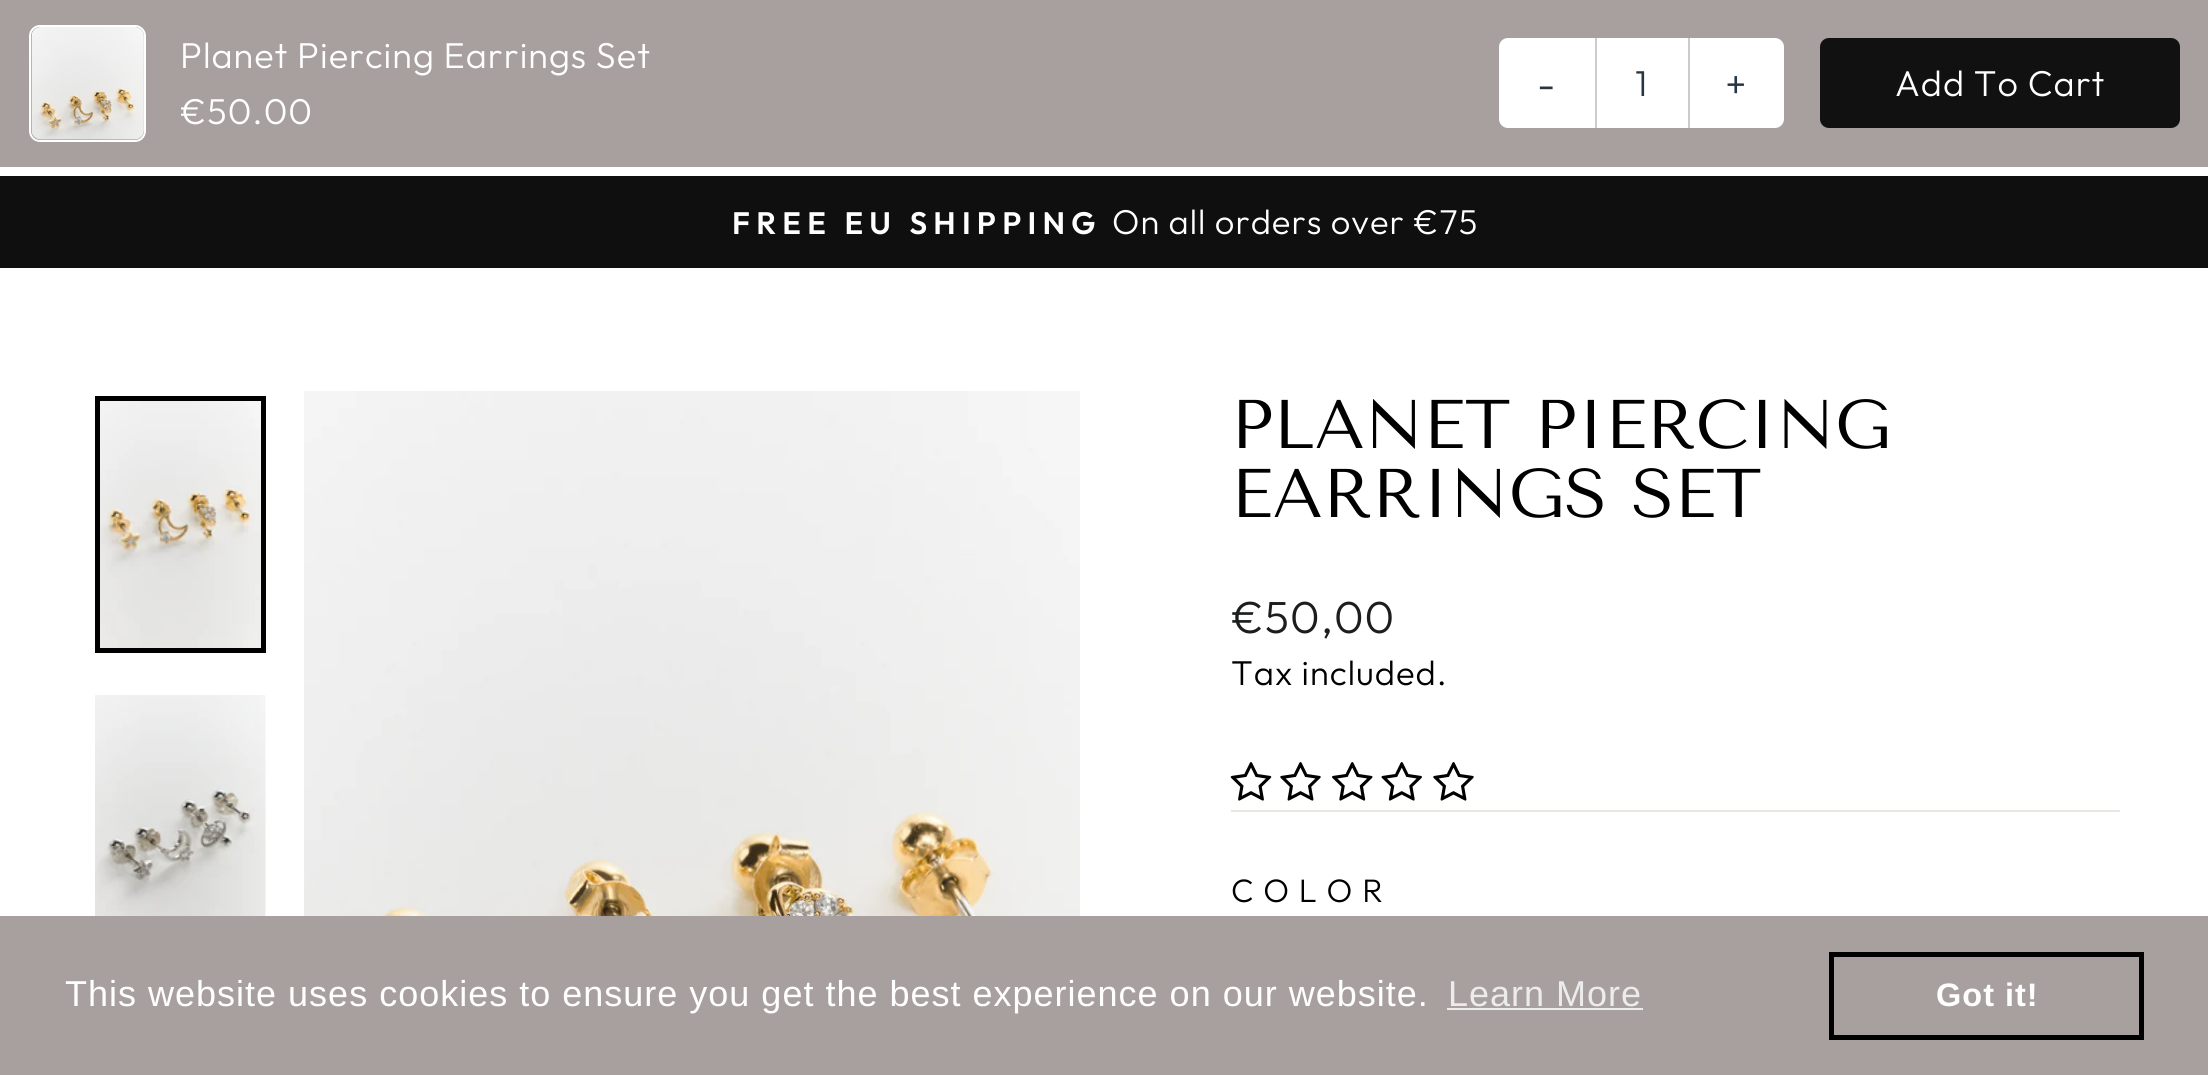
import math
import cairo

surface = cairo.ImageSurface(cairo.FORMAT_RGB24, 2208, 1075)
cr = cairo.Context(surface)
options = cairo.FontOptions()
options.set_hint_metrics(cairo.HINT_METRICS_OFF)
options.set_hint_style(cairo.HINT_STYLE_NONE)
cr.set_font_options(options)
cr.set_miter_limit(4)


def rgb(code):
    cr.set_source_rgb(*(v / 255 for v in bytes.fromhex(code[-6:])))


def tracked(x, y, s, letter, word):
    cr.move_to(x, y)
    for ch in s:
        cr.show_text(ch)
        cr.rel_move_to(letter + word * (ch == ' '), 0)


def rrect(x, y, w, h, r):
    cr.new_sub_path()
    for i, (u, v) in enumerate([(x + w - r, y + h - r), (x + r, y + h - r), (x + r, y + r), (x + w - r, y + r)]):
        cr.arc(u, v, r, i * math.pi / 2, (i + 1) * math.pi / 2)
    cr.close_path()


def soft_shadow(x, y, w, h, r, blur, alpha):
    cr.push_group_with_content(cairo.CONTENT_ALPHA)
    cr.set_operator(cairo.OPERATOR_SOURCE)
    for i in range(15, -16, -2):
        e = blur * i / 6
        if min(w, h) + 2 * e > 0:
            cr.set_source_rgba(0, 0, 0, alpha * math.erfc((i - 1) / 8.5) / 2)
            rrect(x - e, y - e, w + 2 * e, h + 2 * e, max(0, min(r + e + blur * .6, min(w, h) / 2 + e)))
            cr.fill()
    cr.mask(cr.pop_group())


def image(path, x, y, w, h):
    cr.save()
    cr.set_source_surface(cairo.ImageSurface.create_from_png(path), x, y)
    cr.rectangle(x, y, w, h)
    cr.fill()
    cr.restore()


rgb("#ffffff")
cr.paint()
rgb("#0f0f0f")
cr.rectangle(0, 176, 2208, 92)
cr.fill()
rgb("#000000")
soft_shadow(0, -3, 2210, 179, 0, 1, 0.2)
rgb("#a7a09e")
cr.rectangle(0, 0, 2208, 167)
cr.fill()
image("img/1.png", 31, 27, 113, 113)
rrect(30, 26, 115, 115, 10)
rgb("#ffffff")
cr.stroke()
rrect(1499, 38, 285, 90, 9)
cr.fill()
rgb("#cccccc")
cr.rectangle(1595, 38, 2, 90)
cr.fill()
cr.rectangle(1688, 38, 2, 90)
cr.fill()
rgb("#111111")
rrect(1820, 38, 360, 90, 9)
cr.fill()
rgb("#ffffff")
cr.rectangle(0, 167, 2208, 9)
cr.fill()
image("img/2.png", 100, 401, 161, 247)
cr.rectangle(97.5, 398.5, 166, 252)
rgb("#000000")
cr.set_line_width(5)
cr.stroke()
image("img/3.png", 95, 695, 171, 221)
image("img/4.png", 304, 391, 776, 525)
image("img/5.png", 1230, 762, 42, 39)
image("img/6.png", 1280, 762, 41, 39)
image("img/7.png", 1332, 762, 41, 39)
image("img/8.png", 1381, 762, 41, 39)
image("img/6.png", 1433, 762, 41, 39)
for x, y, w, h, color in [
    (1231, 810, 889, 2, "#e8e8e1"),
    (0, 916, 2208, 159, "#a7a09e"),
    (1447, 1008, 196, 2, "#edecec"),
]:
    rgb(color)
    cr.rectangle(x, y, w, h)
    cr.fill()
cr.rectangle(1831.5, 954.5, 310, 83)
rgb("#000000")
cr.stroke()
cr.select_font_face("Outfit Light")
cr.set_font_size(36)
rgb("#ffffff")
tracked(180, 68, "Planet Piercing Earrings Set", 1, 0)
tracked(180, 124, "€50.00", 1, 0)
cr.set_font_size(40)
rgb("#2d353c")
tracked(1537, 98, "-", 1, 0)
cr.set_font_size(36)
rgb("#263644")
tracked(1635, 96, "1", 1, 0)
cr.set_font_size(40)
tracked(1725, 98, "+", 1, 0)
cr.set_font_size(36)
rgb("#ffffff")
tracked(1895, 96, "Add To Cart", 1, 0)
cr.select_font_face("Outfit SemiBold")
cr.set_font_size(31)
tracked(732, 234, "FREE EU SHIPPING", 6.25, 0)
cr.select_font_face("Outfit Light")
cr.set_font_size(34.5)
tracked(1112, 234, "On all orders over €75", 1, 0)
cr.select_font_face("Tenor Sans")
cr.set_font_size(68.75)
rgb("#000000")
cr.move_to(1231, 448)
cr.show_text("PLANET PIERCING")
cr.move_to(1231, 517)
cr.show_text("EARRINGS SET")
cr.select_font_face("Outfit Light")
cr.set_font_size(45)
rgb("#1c1d1d")
tracked(1231, 633, "€50,00", 1, 0)
cr.set_font_size(34.5)
rgb("#000000")
tracked(1231, 685, "Tax included.", 1, 0)
cr.set_font_size(32.5)
tracked(1231, 902, "COLOR", 9.75, 0)
cr.select_font_face("Liberation Sans")
cr.set_font_size(36)
rgb("#ffffff")
tracked(65, 1006, "This website uses cookies to ensure you get the best experience on our website.", 1, 0)
rgb("#edecec")
tracked(1448, 1006, "Learn More", 1, 0)
cr.select_font_face("Liberation Sans", cairo.FONT_SLANT_NORMAL, cairo.FONT_WEIGHT_BOLD)
cr.set_font_size(32.5)
rgb("#ffffff")
tracked(1936, 1006, "Got it!", 1, 0)
surface.write_to_png("page.png")
